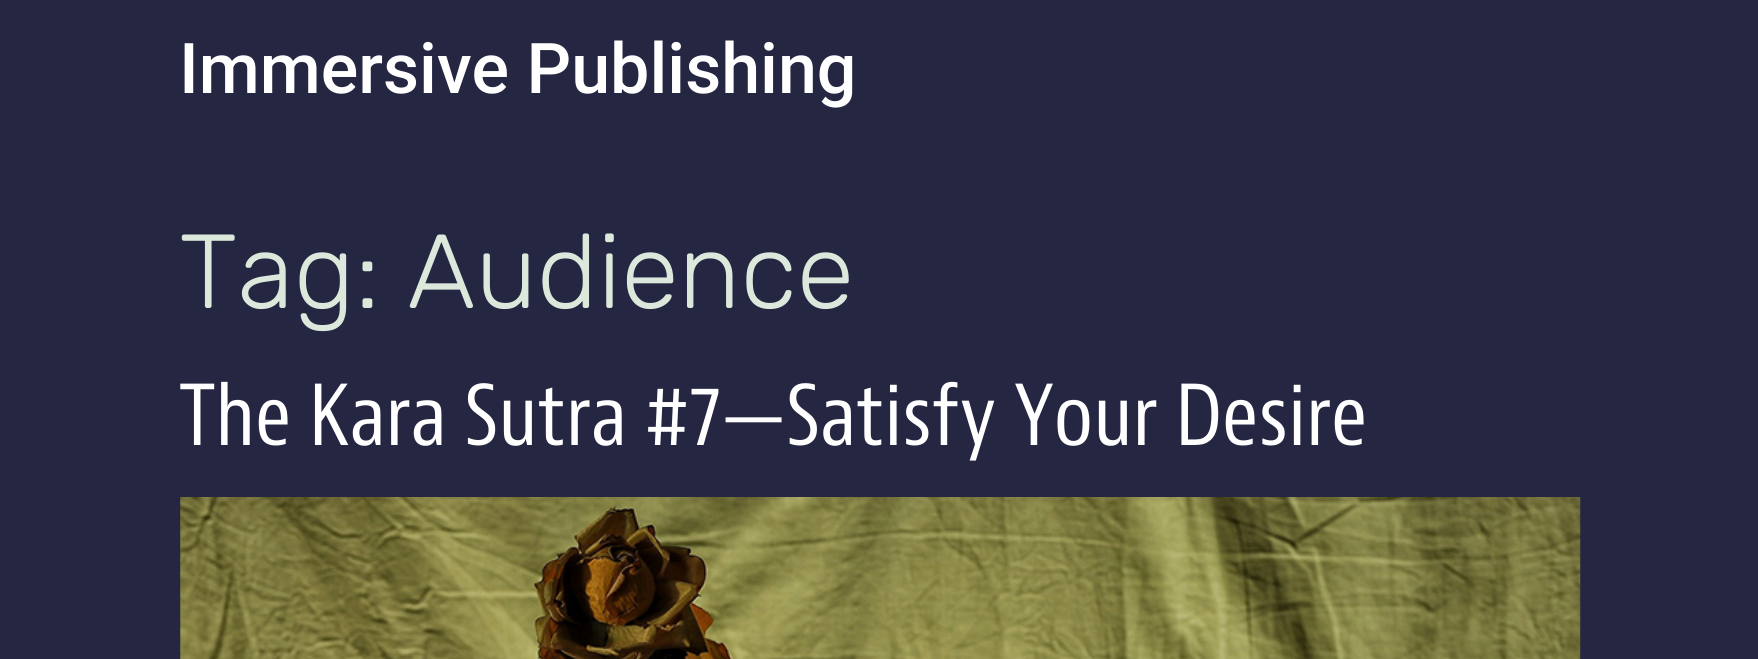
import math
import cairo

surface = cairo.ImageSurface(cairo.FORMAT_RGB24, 1758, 659)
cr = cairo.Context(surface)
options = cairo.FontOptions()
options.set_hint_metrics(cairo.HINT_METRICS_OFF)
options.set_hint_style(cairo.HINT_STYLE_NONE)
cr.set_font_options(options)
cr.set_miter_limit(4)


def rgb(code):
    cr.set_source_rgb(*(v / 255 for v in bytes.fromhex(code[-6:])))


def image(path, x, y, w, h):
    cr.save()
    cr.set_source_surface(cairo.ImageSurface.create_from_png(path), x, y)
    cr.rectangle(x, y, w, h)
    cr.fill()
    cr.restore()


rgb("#252742")
cr.paint()
image("img/1.png", 180, 497, 1401, 162)
cr.select_font_face("Roboto Medium")
cr.set_font_size(70)
rgb("#ffffff")
cr.move_to(179, 93)
cr.show_text("Immersive Publishing")
cr.select_font_face("Rubik Light")
cr.set_font_size(105)
rgb("#dce8dc")
cr.move_to(179, 308)
cr.show_text("Tag: Audience")
cr.select_font_face("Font")
cr.set_font_size(87.5)
rgb("#ffffff")
cr.move_to(179, 445)
cr.show_text("The Kara Sutra #7—Satisfy Your Desire")
surface.write_to_png("page.png")
